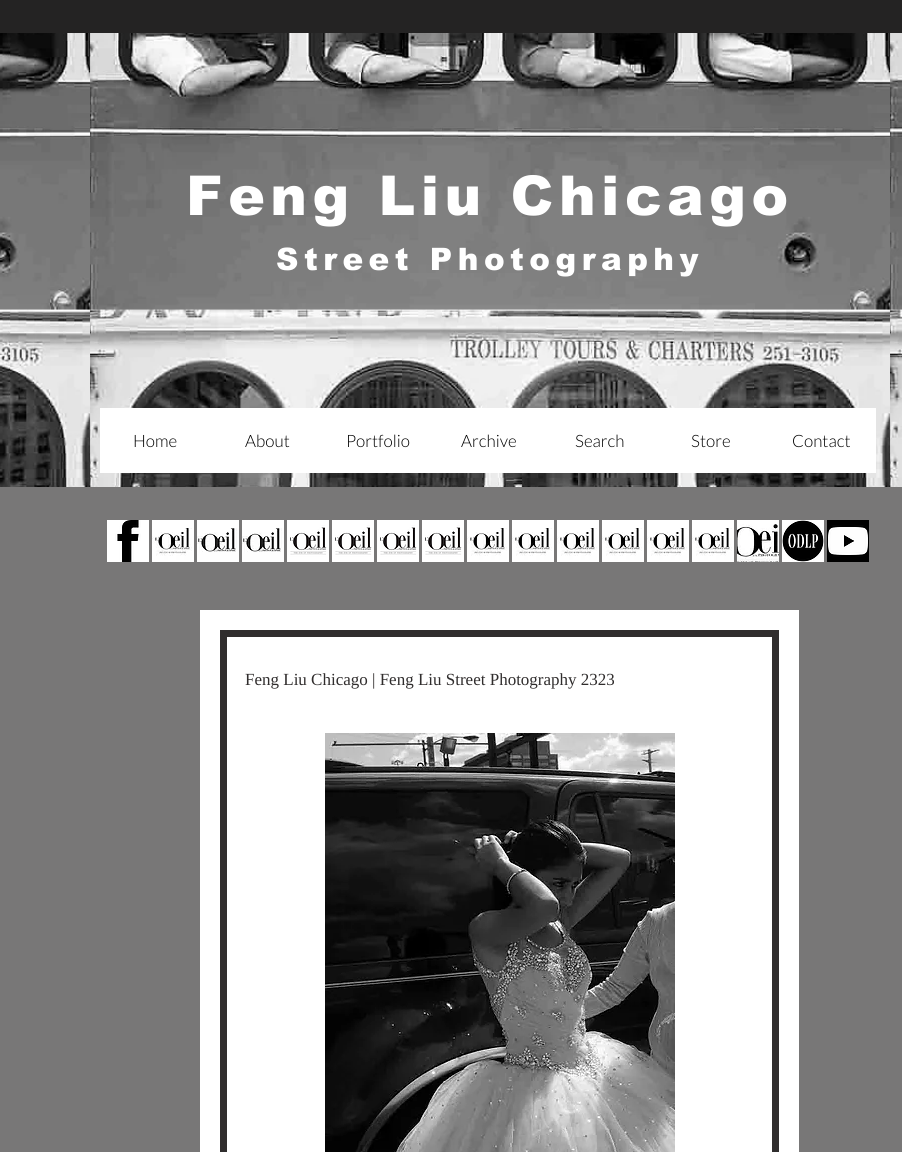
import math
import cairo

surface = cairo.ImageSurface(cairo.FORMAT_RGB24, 902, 1152)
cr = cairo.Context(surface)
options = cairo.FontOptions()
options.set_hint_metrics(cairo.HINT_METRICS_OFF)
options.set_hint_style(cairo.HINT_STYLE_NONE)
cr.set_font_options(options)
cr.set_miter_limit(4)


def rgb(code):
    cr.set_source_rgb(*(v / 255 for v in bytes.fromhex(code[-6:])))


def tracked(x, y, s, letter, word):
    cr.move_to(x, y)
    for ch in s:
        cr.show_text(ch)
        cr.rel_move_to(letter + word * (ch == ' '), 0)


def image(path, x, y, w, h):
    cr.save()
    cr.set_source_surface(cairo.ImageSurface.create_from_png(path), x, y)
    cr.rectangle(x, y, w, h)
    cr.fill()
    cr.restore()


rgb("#787777")
cr.paint()
rgb("#242323")
cr.rectangle(0, 0, 902, 33)
cr.fill()
image("img/1.png", 0, 33, 902, 454)
rgb("#ffffff")
cr.rectangle(100, 408, 776, 65)
cr.fill()
image("img/2.png", 107, 520, 42, 42)
image("img/3.png", 152, 520, 42, 42)
image("img/4.png", 197, 520, 42, 42)
image("img/4.png", 242, 520, 42, 42)
image("img/5.png", 287, 520, 42, 42)
image("img/5.png", 332, 520, 42, 42)
image("img/5.png", 377, 520, 42, 42)
image("img/5.png", 422, 520, 42, 42)
image("img/3.png", 467, 520, 42, 42)
image("img/3.png", 512, 520, 42, 42)
image("img/3.png", 557, 520, 42, 42)
image("img/3.png", 602, 520, 42, 42)
image("img/3.png", 647, 520, 42, 42)
image("img/3.png", 692, 520, 42, 42)
image("img/6.png", 737, 520, 42, 42)
image("img/7.png", 782, 520, 42, 42)
image("img/8.png", 827, 520, 42, 42)
cr.rectangle(200, 610, 599, 542)
cr.fill()
cr.rectangle(223.5, 633.5, 552, 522)
rgb("#302d2d")
cr.set_line_width(7)
cr.stroke()
image("img/9.png", 325, 733, 350, 419)
cr.select_font_face("arial Black")
cr.set_font_size(55)
rgb("#ffffff")
tracked(186, 215, "Feng Liu Chicago", 5.5, 0)
cr.set_font_size(31)
tracked(276, 270, "Street Photography", 5.5, 0)
cr.select_font_face("Lato Light")
cr.set_font_size(17)
rgb("#000000")
for x, y, s in [
    (133, 447, "Home"),
    (245, 447, "About"),
    (346, 447, "Portfolio"),
    (461, 447, "Archive"),
    (575, 447, "Search"),
    (691, 447, "Store"),
    (792, 447, "Contact"),
]:
    cr.move_to(x, y)
    cr.show_text(s)
cr.select_font_face("Liberation Serif")
rgb("#302d2d")
cr.move_to(245, 685)
cr.show_text("Feng Liu Chicago | Feng Liu Street Photography 2323")
surface.write_to_png("page.png")
